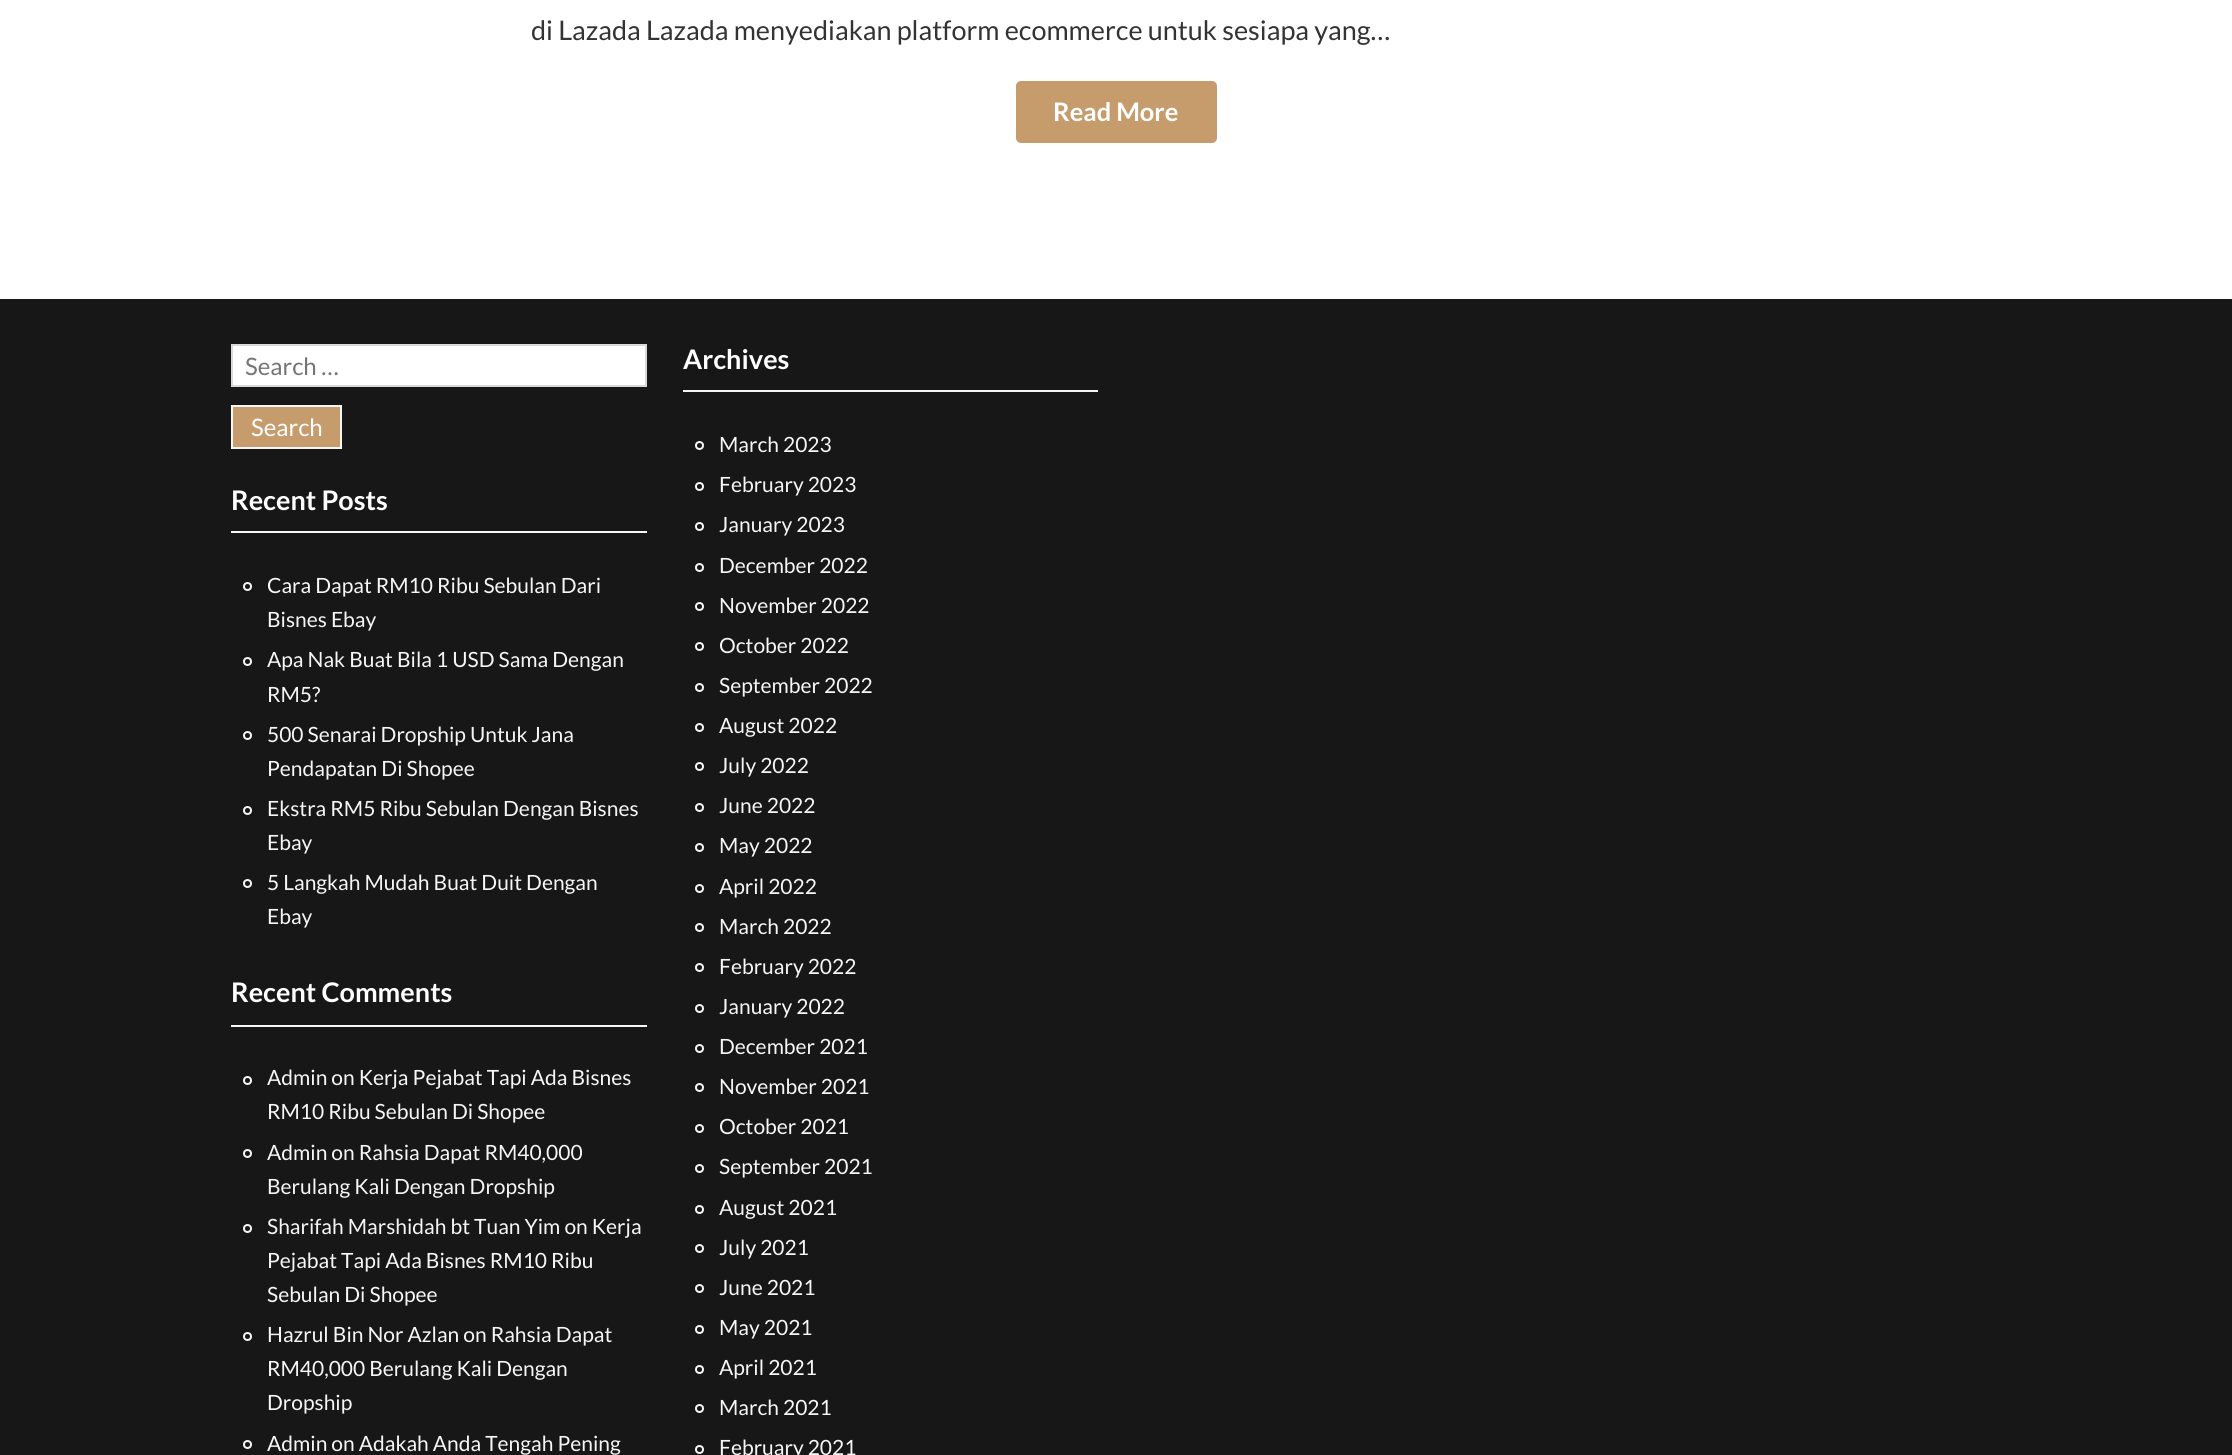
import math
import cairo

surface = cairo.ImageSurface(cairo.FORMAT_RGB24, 2232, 1455)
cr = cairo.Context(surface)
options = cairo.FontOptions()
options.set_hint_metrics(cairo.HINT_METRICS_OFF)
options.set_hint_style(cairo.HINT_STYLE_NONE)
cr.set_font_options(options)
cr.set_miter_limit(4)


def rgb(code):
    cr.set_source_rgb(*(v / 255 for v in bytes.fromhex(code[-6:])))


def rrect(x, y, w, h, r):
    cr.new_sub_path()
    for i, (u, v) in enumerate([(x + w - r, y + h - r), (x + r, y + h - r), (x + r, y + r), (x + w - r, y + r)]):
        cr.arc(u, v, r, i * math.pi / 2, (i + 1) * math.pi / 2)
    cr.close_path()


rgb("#ffffff")
cr.paint()
rgb("#c69c6d")
rrect(1016, 81, 201, 62, 5)
cr.fill()
rgb("#171717")
cr.rectangle(0, 299, 2232, 1156)
cr.fill()
rgb("#ffffff")
cr.rectangle(232, 345, 414, 41)
cr.fill_preserve()
rgb("#d9d9d9")
cr.stroke()
rgb("#c69c6d")
cr.rectangle(232, 406, 109, 42)
cr.fill_preserve()
rgb("#f6f6f6")
cr.stroke()
cr.rectangle(231, 531, 416, 2)
cr.fill()
cr.arc(247.5, 586.5, 3.5, 0, 2 * math.pi)
cr.stroke()
cr.arc(247.5, 661.5, 3.5, 0, 2 * math.pi)
cr.stroke()
cr.arc(247.5, 735.5, 3.5, 0, 2 * math.pi)
cr.stroke()
cr.arc(247.5, 810.5, 3.5, 0, 2 * math.pi)
cr.stroke()
cr.arc(247.5, 883.5, 3.5, 0, 2 * math.pi)
cr.stroke()
cr.rectangle(231, 1025, 416, 2)
cr.fill()
cr.arc(247.5, 1080.5, 3.5, 0, 2 * math.pi)
cr.stroke()
cr.arc(247.5, 1153.5, 3.5, 0, 2 * math.pi)
cr.stroke()
cr.arc(247.5, 1228.5, 3.5, 0, 2 * math.pi)
cr.stroke()
cr.arc(247.5, 1336.5, 3.5, 0, 2 * math.pi)
cr.stroke()
cr.arc(247.5, 1444.5, 3.5, 0, 2 * math.pi)
cr.stroke()
cr.rectangle(683, 390, 415, 2)
cr.fill()
cr.arc(699.5, 445.5, 3.5, 0, 2 * math.pi)
cr.stroke()
cr.arc(699.5, 486.5, 3.5, 0, 2 * math.pi)
cr.stroke()
cr.arc(699.5, 526.5, 3.5, 0, 2 * math.pi)
cr.stroke()
cr.arc(699.5, 567.5, 3.5, 0, 2 * math.pi)
cr.stroke()
cr.arc(699.5, 606.5, 3.5, 0, 2 * math.pi)
cr.stroke()
cr.arc(699.5, 646.5, 3.5, 0, 2 * math.pi)
cr.stroke()
cr.arc(699.5, 687.5, 3.5, 0, 2 * math.pi)
cr.stroke()
cr.arc(699.5, 727.5, 3.5, 0, 2 * math.pi)
cr.stroke()
cr.arc(699.5, 766.5, 3.5, 0, 2 * math.pi)
cr.stroke()
cr.arc(699.5, 807.5, 3.5, 0, 2 * math.pi)
cr.stroke()
cr.arc(699.5, 847.5, 3.5, 0, 2 * math.pi)
cr.stroke()
cr.arc(699.5, 888.5, 3.5, 0, 2 * math.pi)
cr.stroke()
cr.arc(699.5, 927.5, 3.5, 0, 2 * math.pi)
cr.stroke()
cr.arc(699.5, 967.5, 3.5, 0, 2 * math.pi)
cr.stroke()
cr.arc(699.5, 1008.5, 3.5, 0, 2 * math.pi)
cr.stroke()
cr.arc(699.5, 1048.5, 3.5, 0, 2 * math.pi)
cr.stroke()
cr.arc(699.5, 1087.5, 3.5, 0, 2 * math.pi)
cr.stroke()
cr.arc(699.5, 1128.5, 3.5, 0, 2 * math.pi)
cr.stroke()
cr.arc(699.5, 1168.5, 3.5, 0, 2 * math.pi)
cr.stroke()
cr.arc(699.5, 1209.5, 3.5, 0, 2 * math.pi)
cr.stroke()
cr.arc(699.5, 1248.5, 3.5, 0, 2 * math.pi)
cr.stroke()
cr.arc(699.5, 1288.5, 3.5, 0, 2 * math.pi)
cr.stroke()
cr.arc(699.5, 1329.5, 3.5, 0, 2 * math.pi)
cr.stroke()
cr.arc(699.5, 1369.5, 3.5, 0, 2 * math.pi)
cr.stroke()
cr.arc(699.5, 1408.5, 3.5, 0, 2 * math.pi)
cr.stroke()
cr.arc(699.5, 1449.5, 3.5, 0, 2 * math.pi)
cr.stroke()
cr.select_font_face("Lato")
cr.set_font_size(27)
rgb("#333333")
cr.move_to(531, 40)
cr.show_text("di Lazada Lazada menyediakan platform ecommerce untuk sesiapa yang…")
cr.select_font_face("Lato", cairo.FONT_SLANT_NORMAL, cairo.FONT_WEIGHT_BOLD)
cr.set_font_size(25.5)
rgb("#ffffff")
cr.move_to(1053, 121)
cr.show_text("Read More")
cr.select_font_face("Lato")
cr.set_font_size(24)
rgb("#757575")
cr.move_to(245, 375)
cr.show_text("Search …")
rgb("#ffffff")
cr.move_to(251, 436)
cr.show_text("Search")
cr.select_font_face("Lato", cairo.FONT_SLANT_NORMAL, cairo.FONT_WEIGHT_BOLD)
cr.set_font_size(27)
cr.move_to(231, 510)
cr.show_text("Recent Posts")
cr.select_font_face("Lato")
cr.set_font_size(21)
rgb("#f6f6f6")
for x, y, s in [
    (267, 593, "Cara Dapat RM10 Ribu Sebulan Dari"),
    (267, 627, "Bisnes Ebay"),
    (267, 667, "Apa Nak Buat Bila 1 USD Sama Dengan"),
    (267, 702, "RM5?"),
    (267, 742, "500 Senarai Dropship Untuk Jana"),
    (267, 776, "Pendapatan Di Shopee"),
    (267, 816, "Ekstra RM5 Ribu Sebulan Dengan Bisnes"),
    (267, 850, "Ebay"),
    (267, 890, "5 Langkah Mudah Buat Duit Dengan"),
    (267, 924, "Ebay"),
]:
    cr.move_to(x, y)
    cr.show_text(s)
cr.select_font_face("Lato", cairo.FONT_SLANT_NORMAL, cairo.FONT_WEIGHT_BOLD)
cr.set_font_size(27)
rgb("#ffffff")
cr.move_to(231, 1002)
cr.show_text("Recent Comments")
cr.select_font_face("Lato")
cr.set_font_size(21)
rgb("#f6f6f6")
for x, y, s in [
    (267, 1085, "Admin on Kerja Pejabat Tapi Ada Bisnes"),
    (267, 1119, "RM10 Ribu Sebulan Di Shopee"),
    (267, 1160, "Admin on Rahsia Dapat RM40,000"),
    (267, 1194, "Berulang Kali Dengan Dropship"),
    (267, 1234, "Sharifah Marshidah bt Tuan Yim on Kerja"),
    (267, 1268, "Pejabat Tapi Ada Bisnes RM10 Ribu"),
    (267, 1302, "Sebulan Di Shopee"),
    (267, 1342, "Hazrul Bin Nor Azlan on Rahsia Dapat"),
    (267, 1376, "RM40,000 Berulang Kali Dengan"),
    (267, 1410, "Dropship"),
    (267, 1451, "Admin on Adakah Anda Tengah Pening"),
]:
    cr.move_to(x, y)
    cr.show_text(s)
cr.select_font_face("Lato", cairo.FONT_SLANT_NORMAL, cairo.FONT_WEIGHT_BOLD)
cr.set_font_size(27)
rgb("#ffffff")
cr.move_to(683, 369)
cr.show_text("Archives")
cr.select_font_face("Lato")
cr.set_font_size(21)
rgb("#f6f6f6")
for x, y, s in [
    (719, 452, "March 2023"),
    (719, 492, "February 2023"),
    (719, 532, "January 2023"),
    (719, 573, "December 2022"),
    (719, 613, "November 2022"),
    (719, 653, "October 2022"),
    (719, 693, "September 2022"),
    (719, 733, "August 2022"),
    (719, 773, "July 2022"),
    (719, 813, "June 2022"),
    (719, 853, "May 2022"),
    (719, 894, "April 2022"),
    (719, 934, "March 2022"),
    (719, 974, "February 2022"),
    (719, 1014, "January 2022"),
    (719, 1054, "December 2021"),
    (719, 1094, "November 2021"),
    (719, 1134, "October 2021"),
    (719, 1174, "September 2021"),
    (719, 1215, "August 2021"),
    (719, 1255, "July 2021"),
    (719, 1295, "June 2021"),
    (719, 1335, "May 2021"),
    (719, 1375, "April 2021"),
    (719, 1415, "March 2021"),
    (719, 1455, "February 2021"),
]:
    cr.move_to(x, y)
    cr.show_text(s)
surface.write_to_png("page.png")
